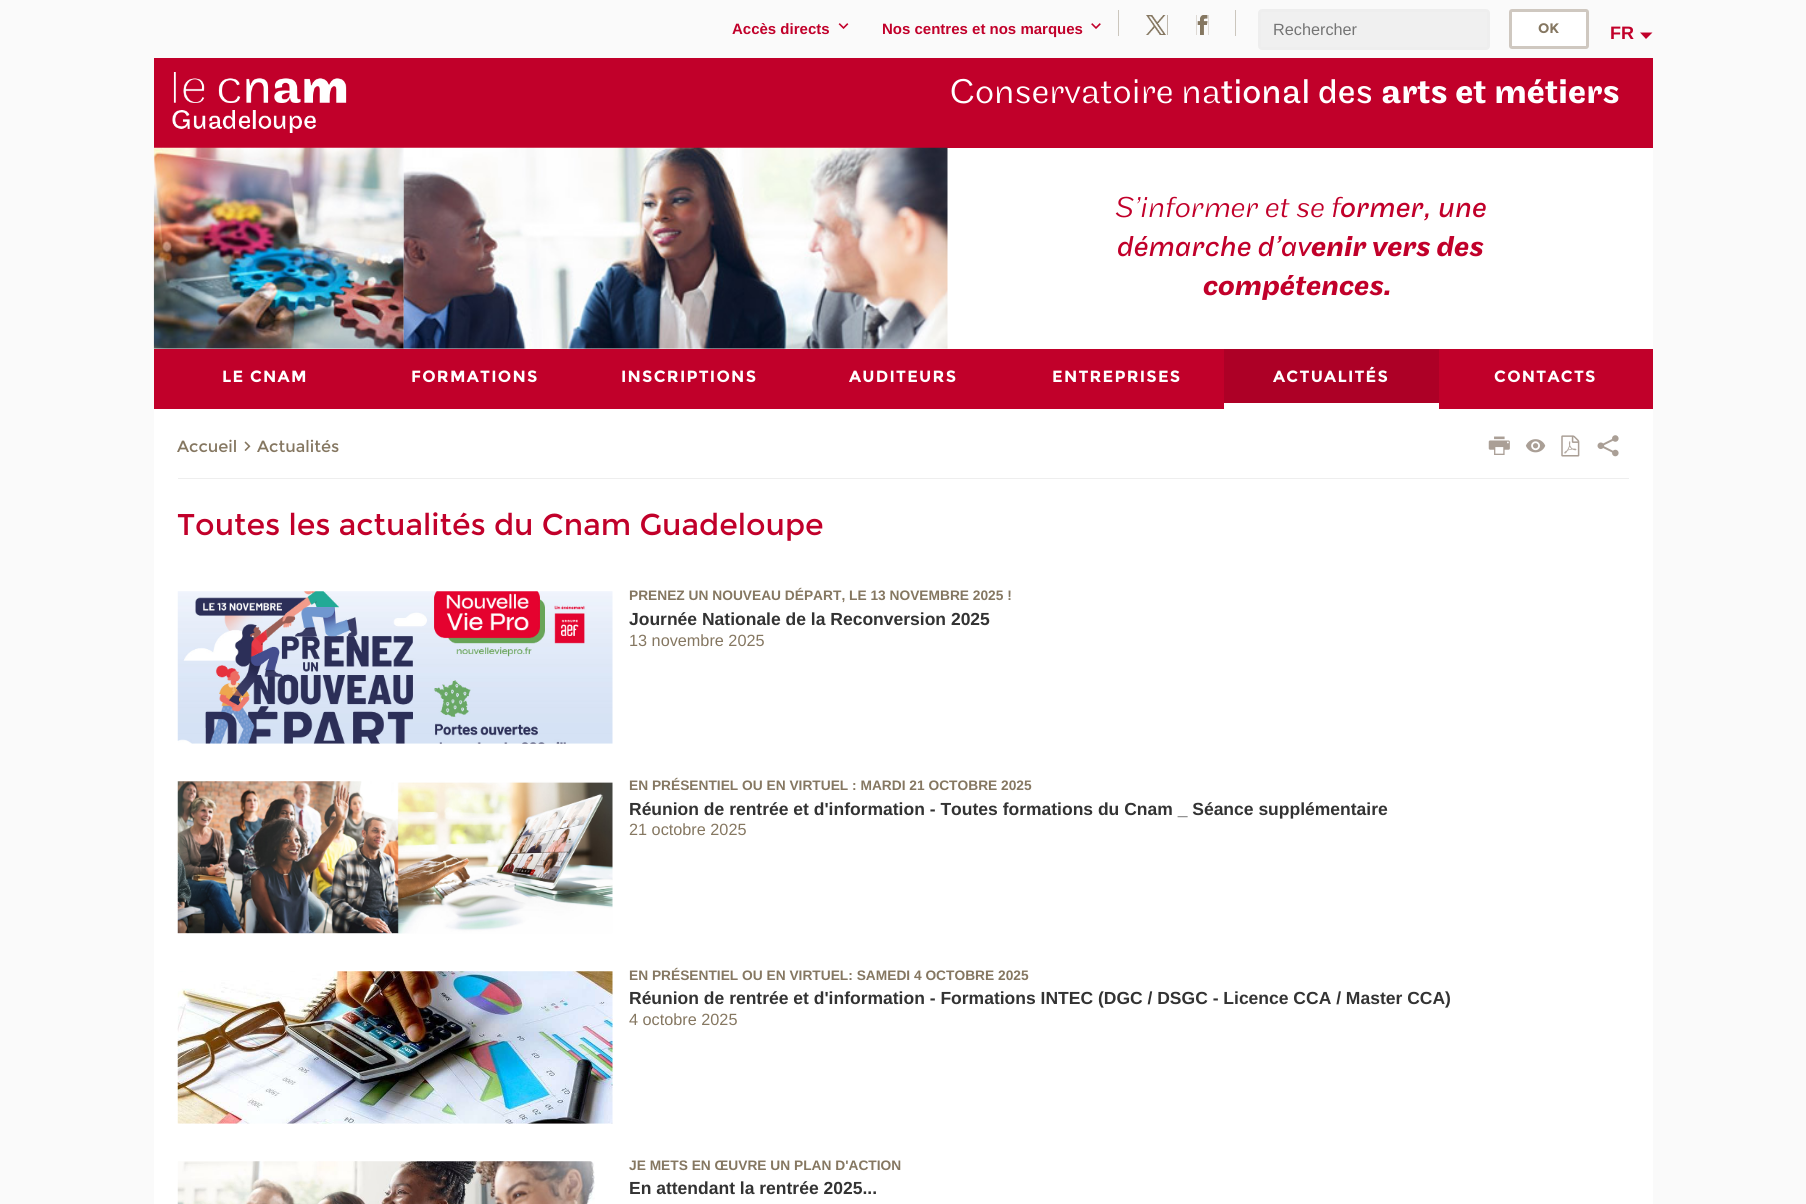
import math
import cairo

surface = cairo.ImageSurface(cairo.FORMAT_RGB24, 1806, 1204)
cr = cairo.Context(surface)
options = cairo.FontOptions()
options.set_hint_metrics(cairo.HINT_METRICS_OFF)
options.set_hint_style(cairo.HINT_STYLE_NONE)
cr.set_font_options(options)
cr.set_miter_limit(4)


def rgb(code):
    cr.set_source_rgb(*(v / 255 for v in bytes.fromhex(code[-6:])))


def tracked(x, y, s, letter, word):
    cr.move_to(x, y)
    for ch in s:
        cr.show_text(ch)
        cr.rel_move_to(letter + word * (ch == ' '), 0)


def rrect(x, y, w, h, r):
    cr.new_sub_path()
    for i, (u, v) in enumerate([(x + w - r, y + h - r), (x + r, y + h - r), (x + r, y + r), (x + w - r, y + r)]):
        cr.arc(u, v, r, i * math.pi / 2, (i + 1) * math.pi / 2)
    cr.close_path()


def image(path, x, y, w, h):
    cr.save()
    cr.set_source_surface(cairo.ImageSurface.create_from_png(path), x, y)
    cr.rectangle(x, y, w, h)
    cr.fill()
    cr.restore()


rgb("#fafafa")
cr.paint()
image("img/1.png", 838, 23, 11, 6)
image("img/2.png", 1091, 23, 10, 6)
for x, y, w, h, color in [
    (1235, 10, 1, 26, "#cbc6bd"),
    (1118, 10, 1, 26, "#cbc6bd"),
    (1145, 15, 23, 20, "#857761"),
]:
    rgb(color)
    cr.rectangle(x, y, w, h)
    cr.fill()
image("img/3.png", 1145, 15, 23, 20)
cr.rectangle(1196, 15, 13, 20)
cr.fill()
image("img/4.png", 1196, 15, 13, 20)
rgb("#f0f0f0")
rrect(1259.5, 10.5, 229, 38, 2.5)
cr.fill_preserve()
rgb("#eeeeee")
cr.set_line_width(3)
cr.stroke()
rgb("#ffffff")
rrect(1510.5, 10.5, 77, 37, 1.5)
cr.fill_preserve()
rgb("#cfc8c0")
cr.stroke()
rgb("#c1002a")
cr.new_path()
cr.move_to(1640, 32.5)
cr.line_to(1652.5, 32.5)
cr.line_to(1646, 39)
cr.close_path()
cr.fill()
cr.rectangle(154, 58, 1499, 90)
cr.fill()
image("img/5.png", 172, 72, 175, 61)
rgb("#ffffff")
cr.rectangle(154, 148, 1499, 201)
cr.fill()
image("img/6.png", 153, 147, 251, 202)
image("img/7.png", 403, 147, 545, 202)
for x, y, w, h, color in [
    (154, 349, 1499, 60, "#c1002a"),
    (1224, 349, 215, 54, "#ad0026"),
    (1224, 403, 215, 6, "#ffffff"),
    (154, 409, 1499, 795, "#ffffff"),
    (178, 478, 1451, 1, "#eeeeee"),
]:
    rgb(color)
    cr.rectangle(x, y, w, h)
    cr.fill()
image("img/8.png", 244, 441, 7, 10)
image("img/9.png", 1488, 436, 22, 19)
image("img/10.png", 1525, 439, 21, 14)
image("img/11.png", 1561, 435, 19, 22)
image("img/12.png", 1597, 435, 22, 22)
image("img/13.png", 177, 591, 436, 153)
image("img/14.png", 177, 781, 436, 153)
image("img/15.png", 177, 971, 436, 153)
image("img/16.png", 177, 1161, 418, 43)
cr.select_font_face("Liberation Sans", cairo.FONT_SLANT_NORMAL, cairo.FONT_WEIGHT_BOLD)
cr.set_font_size(15)
rgb("#c1002a")
cr.move_to(732, 34)
cr.show_text("Accès directs")
cr.move_to(882, 34)
cr.show_text("Nos centres et nos marques")
cr.select_font_face("Liberation Sans")
cr.set_font_size(16.25)
rgb("#757575")
cr.move_to(1273, 35)
cr.show_text("Rechercher")
cr.select_font_face("Montserrat", cairo.FONT_SLANT_NORMAL, cairo.FONT_WEIGHT_BOLD)
cr.set_font_size(13.75)
rgb("#857761")
cr.move_to(1538, 33)
cr.show_text("OK")
cr.select_font_face("Liberation Sans", cairo.FONT_SLANT_NORMAL, cairo.FONT_WEIGHT_BOLD)
cr.set_font_size(18)
rgb("#c1002a")
cr.move_to(1610, 39)
cr.show_text("FR")
cr.select_font_face("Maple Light")
cr.set_font_size(35.75)
rgb("#ffffff")
cr.move_to(950, 103)
cr.show_text("Conservatoire na")
cr.select_font_face("Maple")
cr.move_to(1221, 103)
cr.show_text("tional des")
cr.select_font_face("Maple Medium")
cr.move_to(1381, 103)
cr.show_text("arts et métiers")
cr.select_font_face("Maple Light", cairo.FONT_SLANT_ITALIC)
cr.set_font_size(30)
rgb("#c1002a")
cr.move_to(1114, 217)
cr.show_text("S’informer et se f")
cr.select_font_face("Maple", cairo.FONT_SLANT_ITALIC)
cr.move_to(1340, 217)
cr.show_text("ormer, une")
cr.move_to(1117, 256)
cr.show_text("démarche d’av")
cr.select_font_face("Maple Medium", cairo.FONT_SLANT_ITALIC)
cr.move_to(1311, 256)
cr.show_text("enir vers des")
cr.move_to(1203, 295)
cr.show_text("compétences.")
cr.select_font_face("Montserrat", cairo.FONT_SLANT_NORMAL, cairo.FONT_WEIGHT_BOLD)
cr.set_font_size(16.25)
rgb("#ffffff")
for x, y, s in [
    (222, 382, "LE CNAM"),
    (411, 382, "FORMATIONS"),
    (621, 382, "INSCRIPTIONS"),
    (849, 382, "AUDITEURS"),
    (1052, 382, "ENTREPRISES"),
    (1273, 382, "ACTUALITÉS"),
    (1494, 382, "CONTACTS"),
]:
    tracked(x, y, s, 1.25, 0)
cr.select_font_face("Montserrat")
rgb("#857761")
cr.move_to(177, 452)
cr.show_text("Accueil")
cr.move_to(257, 452)
cr.show_text("Actualités")
cr.set_font_size(30)
rgb("#c1002a")
cr.move_to(177, 535)
cr.show_text("Toutes les actualités du Cnam Guadeloupe")
cr.select_font_face("Liberation Sans", cairo.FONT_SLANT_NORMAL, cairo.FONT_WEIGHT_BOLD)
cr.set_font_size(13.75)
rgb("#857761")
cr.move_to(629, 600)
cr.show_text("PRENEZ UN NOUVEAU DÉPART, LE 13 NOVEMBRE 2025 !")
cr.set_font_size(17.5)
rgb("#333333")
cr.move_to(629, 625)
cr.show_text("Journée Nationale de la Reconversion 2025")
cr.select_font_face("Liberation Sans")
cr.set_font_size(16.25)
rgb("#857761")
cr.move_to(629, 646)
cr.show_text("13 novembre 2025")
cr.select_font_face("Liberation Sans", cairo.FONT_SLANT_NORMAL, cairo.FONT_WEIGHT_BOLD)
cr.set_font_size(13.75)
cr.move_to(629, 790)
cr.show_text("EN PRÉSENTIEL OU EN VIRTUEL : MARDI 21 OCTOBRE 2025")
cr.set_font_size(17.5)
rgb("#333333")
cr.move_to(629, 815)
cr.show_text("Réunion de rentrée et d'information - Toutes formations du Cnam _ Séance supplémentaire")
cr.select_font_face("Liberation Sans")
cr.set_font_size(16.25)
rgb("#857761")
cr.move_to(629, 835)
cr.show_text("21 octobre 2025")
cr.select_font_face("Liberation Sans", cairo.FONT_SLANT_NORMAL, cairo.FONT_WEIGHT_BOLD)
cr.set_font_size(13.75)
cr.move_to(629, 980)
cr.show_text("EN PRÉSENTIEL OU EN VIRTUEL: SAMEDI 4 OCTOBRE 2025")
cr.set_font_size(17.5)
rgb("#333333")
cr.move_to(629, 1004)
cr.show_text("Réunion de rentrée et d'information - Formations INTEC (DGC / DSGC - Licence CCA / Master CCA)")
cr.select_font_face("Liberation Sans")
cr.set_font_size(16.25)
rgb("#857761")
cr.move_to(629, 1025)
cr.show_text("4 octobre 2025")
cr.select_font_face("Liberation Sans", cairo.FONT_SLANT_NORMAL, cairo.FONT_WEIGHT_BOLD)
cr.set_font_size(13.75)
cr.move_to(629, 1170)
cr.show_text("JE METS EN ŒUVRE UN PLAN D'ACTION")
cr.set_font_size(17.5)
rgb("#333333")
cr.move_to(629, 1194)
cr.show_text("En attendant la rentrée 2025...")
surface.write_to_png("page.png")
